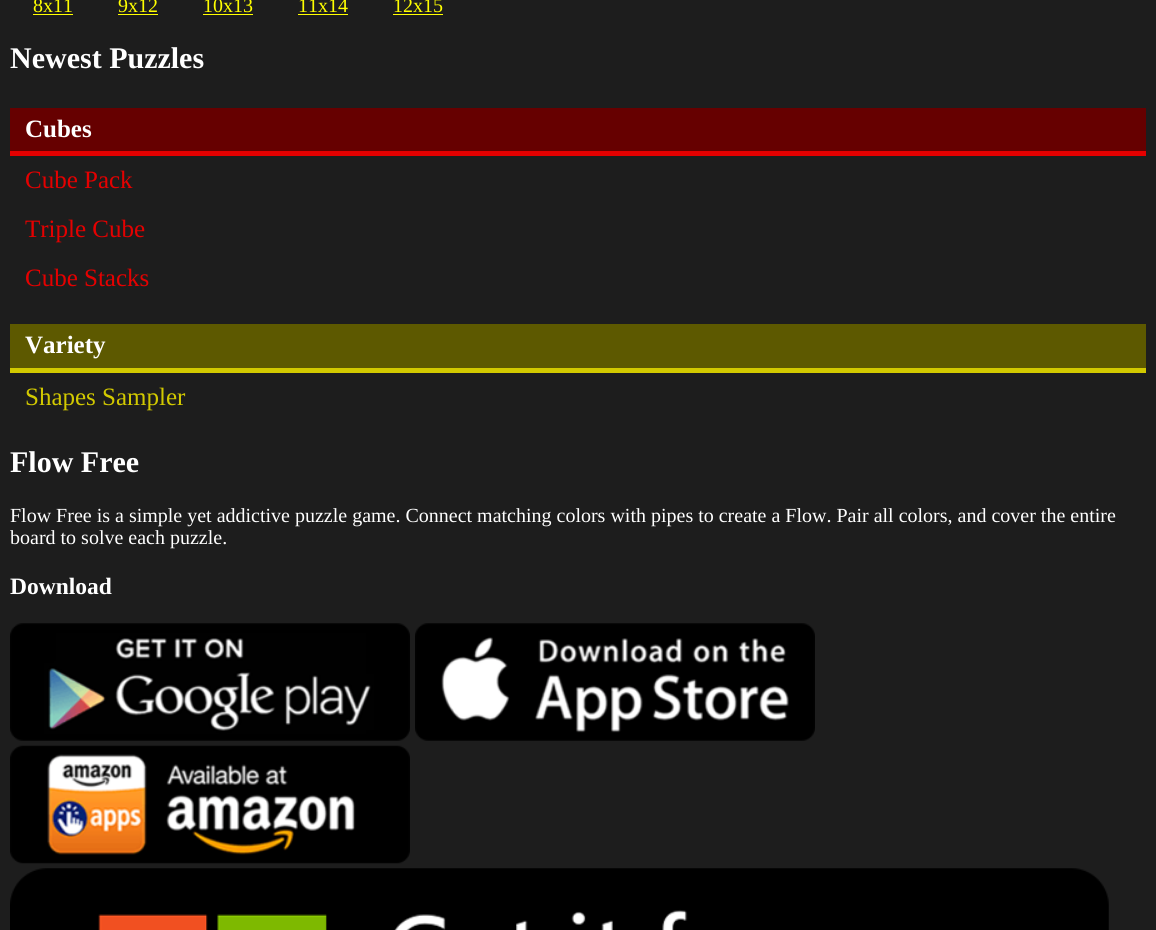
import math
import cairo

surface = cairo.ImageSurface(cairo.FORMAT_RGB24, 1156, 930)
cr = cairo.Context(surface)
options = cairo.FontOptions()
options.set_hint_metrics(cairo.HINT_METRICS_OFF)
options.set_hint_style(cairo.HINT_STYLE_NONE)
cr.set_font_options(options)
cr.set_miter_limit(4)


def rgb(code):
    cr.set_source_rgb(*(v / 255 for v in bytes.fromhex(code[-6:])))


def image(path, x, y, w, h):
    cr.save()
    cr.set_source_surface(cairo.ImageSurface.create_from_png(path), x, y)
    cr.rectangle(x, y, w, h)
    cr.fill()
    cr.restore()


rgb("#1d1d1d")
cr.paint()
for x, y, w, h, color in [
    (33, 14, 40, 1, "#ffff00"),
    (118, 14, 40, 1, "#ffff00"),
    (203, 14, 50, 1, "#ffff00"),
    (298, 14, 50, 1, "#ffff00"),
    (393, 14, 50, 1, "#ffff00"),
    (10, 108, 1136, 43, "#660000"),
    (10, 151, 1136, 5, "#e50000"),
    (10, 324, 1136, 44, "#5d5900"),
    (10, 368, 1136, 5, "#d2c900"),
]:
    rgb(color)
    cr.rectangle(x, y, w, h)
    cr.fill()
image("img/1.png", 10, 623, 400, 118)
image("img/2.png", 415, 623, 400, 118)
image("img/3.png", 10, 745, 400, 119)
image("img/4.png", 10, 868, 1099, 62)
cr.select_font_face("Liberation Serif")
cr.set_font_size(20)
rgb("#ffff00")
for x, y, s in [
    (33, 12, "8x11"),
    (118, 12, "9x12"),
    (203, 12, "10x13"),
    (298, 12, "11x14"),
    (393, 12, "12x15"),
]:
    cr.move_to(x, y)
    cr.show_text(s)
cr.select_font_face("Liberation Serif", cairo.FONT_SLANT_NORMAL, cairo.FONT_WEIGHT_BOLD)
cr.set_font_size(30)
rgb("#ffffff")
cr.move_to(10, 68)
cr.show_text("Newest Puzzles")
cr.set_font_size(25)
cr.move_to(25, 137)
cr.show_text("Cubes")
cr.select_font_face("Liberation Serif")
rgb("#e50000")
for x, y, s in [
    (25, 188, "Cube Pack"),
    (25, 237, "Triple Cube"),
    (25, 286, "Cube Stacks"),
]:
    cr.move_to(x, y)
    cr.show_text(s)
cr.select_font_face("Liberation Serif", cairo.FONT_SLANT_NORMAL, cairo.FONT_WEIGHT_BOLD)
rgb("#ffffff")
cr.move_to(25, 353)
cr.show_text("Variety")
cr.select_font_face("Liberation Serif")
rgb("#d2c900")
cr.move_to(25, 405)
cr.show_text("Shapes Sampler")
cr.select_font_face("Liberation Serif", cairo.FONT_SLANT_NORMAL, cairo.FONT_WEIGHT_BOLD)
cr.set_font_size(30)
rgb("#ffffff")
cr.move_to(10, 472)
cr.show_text("Flow Free")
cr.select_font_face("Liberation Serif")
cr.set_font_size(20)
cr.move_to(10, 522)
cr.show_text("Flow Free is a simple yet addictive puzzle game. Connect matching colors with pipes to create a Flow. Pair all colors, and cover the entire")
cr.move_to(10, 544)
cr.show_text("board to solve each puzzle.")
cr.select_font_face("Liberation Serif", cairo.FONT_SLANT_NORMAL, cairo.FONT_WEIGHT_BOLD)
cr.set_font_size(23.5)
cr.move_to(10, 594)
cr.show_text("Download")
surface.write_to_png("page.png")
